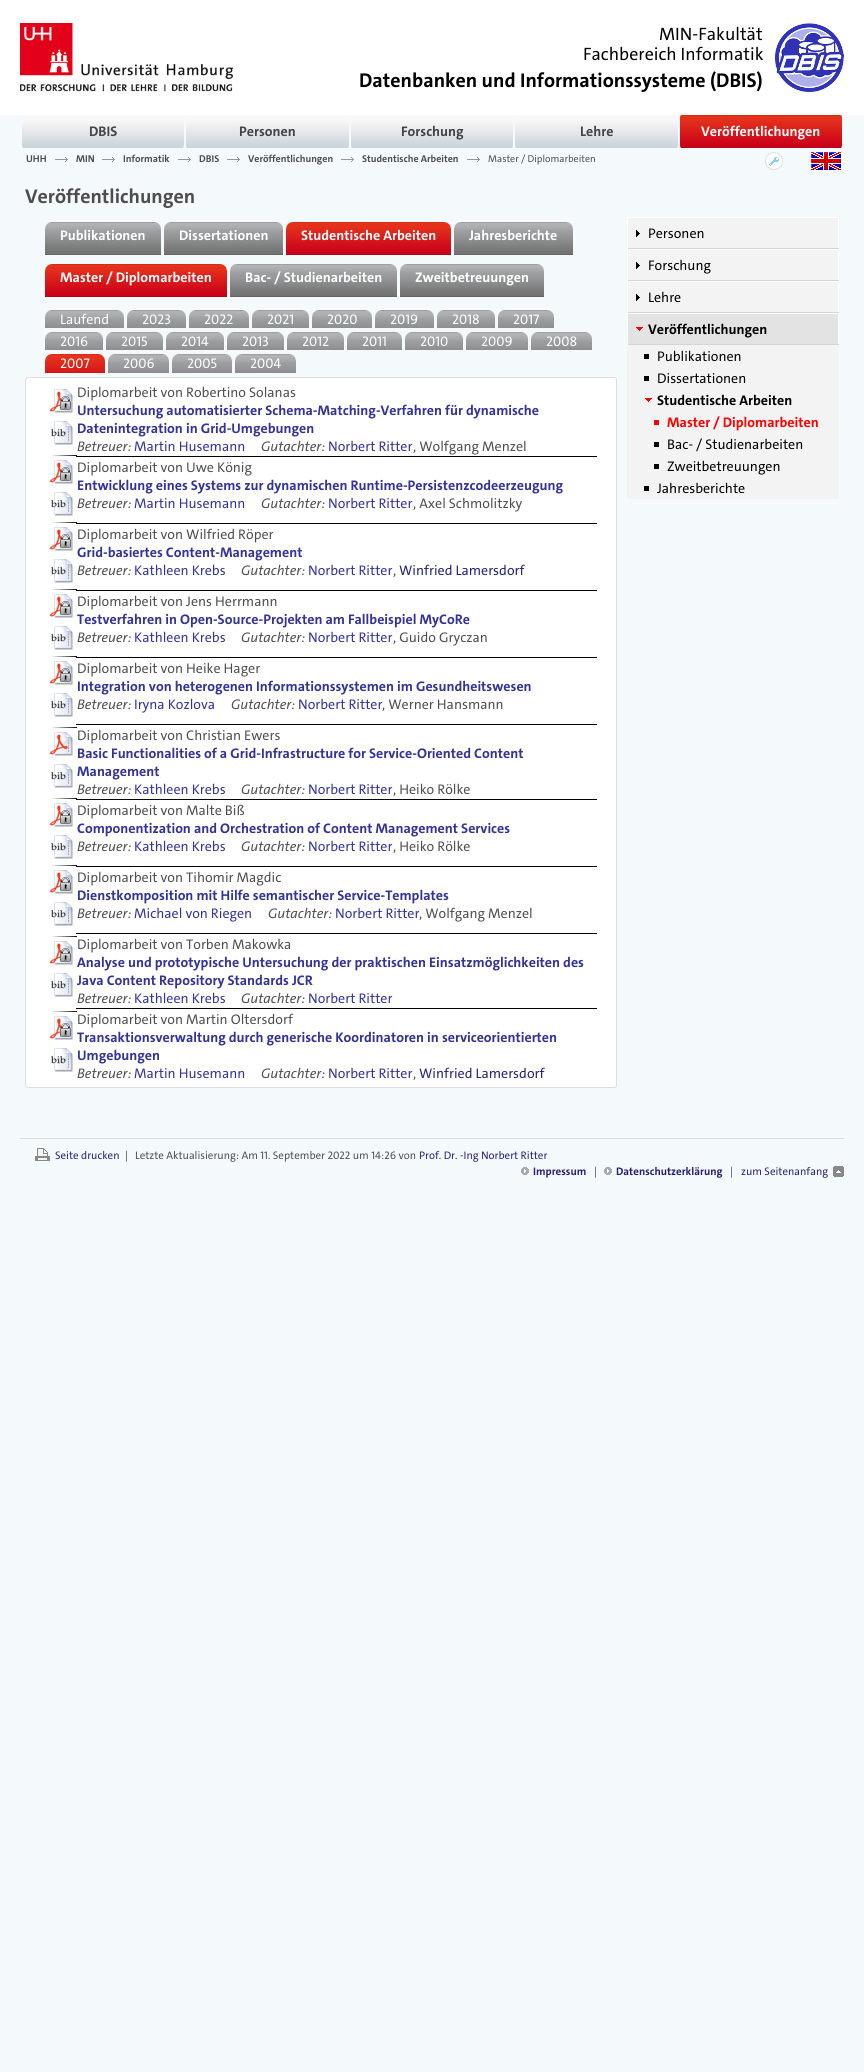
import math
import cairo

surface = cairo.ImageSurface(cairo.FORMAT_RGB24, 864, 2072)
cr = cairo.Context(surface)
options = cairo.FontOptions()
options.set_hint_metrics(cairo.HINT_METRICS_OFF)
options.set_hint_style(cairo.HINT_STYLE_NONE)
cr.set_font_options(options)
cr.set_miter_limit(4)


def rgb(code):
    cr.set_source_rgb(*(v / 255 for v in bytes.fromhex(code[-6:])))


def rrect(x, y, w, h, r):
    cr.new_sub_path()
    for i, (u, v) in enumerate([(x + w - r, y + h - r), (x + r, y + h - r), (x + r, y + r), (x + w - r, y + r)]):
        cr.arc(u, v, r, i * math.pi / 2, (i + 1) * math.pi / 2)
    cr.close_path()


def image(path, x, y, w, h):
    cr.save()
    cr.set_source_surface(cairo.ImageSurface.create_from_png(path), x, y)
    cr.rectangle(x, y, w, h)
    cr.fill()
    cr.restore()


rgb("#f4f9fc")
cr.paint()
rgb("#ffffff")
cr.rectangle(0, 0, 864, 115)
cr.fill()
image("img/1.png", 20, 23, 213, 69)
image("img/2.png", 775, 23, 69, 69)
image("img/3.png", 22, 115, 162, 33)
image("img/4.png", 186, 115, 163, 33)
image("img/3.png", 351, 115, 162, 33)
image("img/4.png", 515, 115, 163, 33)
image("img/5.png", 680, 115, 162, 33)
image("img/6.png", 55, 157, 13, 5)
image("img/6.png", 102, 157, 13, 5)
image("img/6.png", 178, 157, 13, 5)
image("img/6.png", 227, 157, 13, 5)
image("img/6.png", 341, 157, 13, 5)
image("img/6.png", 467, 157, 13, 5)
cr.arc(774, 161, 9, 0, 2 * math.pi)
cr.fill()
image("img/7.png", 769, 157, 10, 9)
cr.arc(774, 161, 8.5, 0, 2 * math.pi)
rgb("#dddddd")
cr.set_line_width(1)
cr.stroke()
image("img/8.png", 811, 152, 30, 18)
image("img/9.png", 45, 222, 116, 33)
image("img/10.png", 164, 222, 119, 33)
image("img/11.png", 286, 222, 165, 33)
image("img/10.png", 454, 222, 119, 33)
image("img/12.png", 45, 264, 182, 33)
image("img/13.png", 230, 264, 167, 33)
image("img/14.png", 400, 264, 144, 33)
image("img/15.png", 45, 310, 79, 18)
image("img/16.png", 127, 310, 59, 18)
image("img/17.png", 189, 310, 60, 18)
image("img/18.png", 252, 310, 57, 18)
image("img/17.png", 312, 310, 60, 18)
image("img/16.png", 375, 310, 59, 18)
image("img/19.png", 437, 310, 58, 18)
image("img/20.png", 498, 310, 56, 18)
image("img/19.png", 45, 332, 58, 18)
image("img/21.png", 106, 332, 57, 18)
image("img/19.png", 166, 332, 58, 18)
image("img/21.png", 227, 332, 57, 18)
image("img/21.png", 287, 332, 57, 18)
image("img/22.png", 347, 332, 55, 18)
image("img/19.png", 405, 332, 58, 18)
image("img/23.png", 466, 332, 62, 18)
image("img/24.png", 531, 332, 61, 18)
image("img/25.png", 45, 354, 60, 19)
image("img/26.png", 108, 354, 61, 19)
image("img/27.png", 172, 354, 60, 19)
image("img/26.png", 235, 354, 61, 19)
rgb("#ffffff")
rrect(25.5, 377.5, 591, 710, 2.5)
cr.fill_preserve()
rgb("#dddddd")
cr.stroke()
image("img/28.png", 49, 389, 24, 24)
image("img/29.png", 51, 421, 22, 24)
image("img/30.png", 52, 455, 25, 1)
image("img/28.png", 49, 460, 24, 24)
image("img/29.png", 51, 492, 22, 24)
rgb("#000000")
cr.rectangle(76, 456, 521, 1)
cr.fill()
image("img/30.png", 52, 522, 25, 1)
image("img/28.png", 49, 527, 24, 24)
image("img/29.png", 51, 559, 22, 24)
cr.rectangle(76, 523, 521, 1)
cr.fill()
image("img/30.png", 52, 589, 25, 1)
image("img/28.png", 49, 594, 24, 24)
image("img/29.png", 51, 626, 22, 24)
cr.rectangle(76, 590, 521, 1)
cr.fill()
image("img/30.png", 52, 656, 25, 1)
image("img/28.png", 49, 661, 24, 24)
image("img/29.png", 51, 693, 22, 24)
cr.rectangle(76, 657, 521, 1)
cr.fill()
image("img/30.png", 52, 727, 25, 1)
image("img/31.png", 49, 732, 24, 24)
image("img/29.png", 51, 764, 22, 24)
cr.rectangle(76, 724, 521, 1)
cr.fill()
image("img/30.png", 52, 798, 25, 1)
image("img/28.png", 49, 803, 24, 24)
image("img/29.png", 51, 835, 22, 24)
cr.rectangle(76, 799, 521, 1)
cr.fill()
image("img/30.png", 52, 865, 25, 1)
image("img/28.png", 49, 870, 24, 24)
image("img/29.png", 51, 902, 22, 24)
cr.rectangle(76, 866, 521, 1)
cr.fill()
image("img/30.png", 52, 936, 25, 1)
image("img/28.png", 49, 941, 24, 24)
image("img/29.png", 51, 973, 22, 24)
cr.rectangle(76, 933, 521, 1)
cr.fill()
image("img/30.png", 52, 1011, 25, 1)
image("img/28.png", 49, 1016, 24, 24)
image("img/29.png", 51, 1048, 22, 24)
cr.rectangle(76, 1008, 521, 1)
cr.fill()
rgb("#f3f3f3")
cr.rectangle(628, 218, 210, 30)
cr.fill()
image("img/32.png", 636, 230, 4, 7)
for x, y, w, h, color in [
    (627, 217, 212, 1, "#ffffff"),
    (838, 217, 1, 32, "#ffffff"),
    (627, 248, 212, 1, "#d4d4d4"),
    (627, 217, 1, 32, "#ffffff"),
    (628, 250, 210, 30, "#f3f3f3"),
]:
    rgb(color)
    cr.rectangle(x, y, w, h)
    cr.fill()
image("img/32.png", 636, 262, 4, 7)
for x, y, w, h, color in [
    (627, 249, 212, 1, "#ffffff"),
    (838, 249, 1, 32, "#ffffff"),
    (627, 280, 212, 1, "#d4d4d4"),
    (627, 249, 1, 32, "#ffffff"),
    (628, 282, 210, 30, "#f3f3f3"),
]:
    rgb(color)
    cr.rectangle(x, y, w, h)
    cr.fill()
image("img/32.png", 636, 294, 4, 7)
for x, y, w, h, color in [
    (627, 281, 212, 1, "#ffffff"),
    (838, 281, 1, 32, "#ffffff"),
    (627, 312, 212, 1, "#d4d4d4"),
    (627, 281, 1, 32, "#ffffff"),
    (628, 314, 210, 30, "#e3e3e3"),
]:
    rgb(color)
    cr.rectangle(x, y, w, h)
    cr.fill()
image("img/33.png", 636, 327, 7, 4)
for x, y, w, h, color in [
    (627, 313, 212, 1, "#ffffff"),
    (838, 313, 1, 32, "#ffffff"),
    (627, 344, 212, 1, "#d4d4d4"),
    (627, 313, 1, 32, "#ffffff"),
    (627, 345, 212, 154, "#f3f3f3"),
    (644, 354, 5, 5, "#000000"),
    (644, 376, 5, 5, "#000000"),
]:
    rgb(color)
    cr.rectangle(x, y, w, h)
    cr.fill()
image("img/34.png", 645, 398, 7, 4)
for x, y, w, h, color in [
    (654, 420, 5, 5, "#ff0000"),
    (654, 442, 5, 5, "#000000"),
    (654, 464, 5, 5, "#000000"),
    (644, 486, 5, 5, "#000000"),
    (20, 1138, 824, 1, "#dddddd"),
]:
    rgb(color)
    cr.rectangle(x, y, w, h)
    cr.fill()
image("img/35.png", 35, 1148, 15, 13)
image("img/36.png", 521, 1167, 8, 8)
image("img/36.png", 604, 1167, 8, 8)
image("img/37.png", 833, 1166, 11, 11)
cr.select_font_face("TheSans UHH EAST")
cr.set_font_size(18)
rgb("#000000")
cr.move_to(659, 40)
cr.show_text("MIN-Fakultät")
cr.move_to(583, 60)
cr.show_text("Fachbereich Informatik")
cr.select_font_face("TheSans UHH EAST", cairo.FONT_SLANT_NORMAL, cairo.FONT_WEIGHT_BOLD)
cr.set_font_size(20)
cr.move_to(359, 87)
cr.show_text("Datenbanken und Informationssysteme (DBIS)")
cr.set_font_size(14)
rgb("#444444")
for x, y, s in [
    (89, 136, "DBIS"),
    (239, 136, "Personen"),
    (401, 136, "Forschung"),
    (580, 136, "Lehre"),
]:
    cr.move_to(x, y)
    cr.show_text(s)
rgb("#ffffff")
cr.move_to(701, 136)
cr.show_text("Veröffentlichungen")
cr.set_font_size(10)
rgb("#4e4e4e")
for x, y, s in [
    (26, 162, "UHH"),
    (76, 162, "MIN"),
    (123, 162, "Informatik"),
    (199, 162, "DBIS"),
    (248, 162, "Veröffentlichungen"),
    (362, 162, "Studentische Arbeiten"),
]:
    cr.move_to(x, y)
    cr.show_text(s)
cr.select_font_face("TheSans UHH EAST")
cr.move_to(488, 162)
cr.show_text("Master / Diplomarbeiten")
cr.select_font_face("TheSans UHH EAST", cairo.FONT_SLANT_NORMAL, cairo.FONT_WEIGHT_BOLD)
cr.set_font_size(20)
cr.move_to(25, 203)
cr.show_text("Veröffentlichungen")
cr.set_font_size(14)
rgb("#ffffff")
for x, y, s in [
    (60, 240, "Publikationen"),
    (179, 240, "Dissertationen"),
    (301, 240, "Studentische Arbeiten"),
    (469, 240, "Jahresberichte"),
    (60, 282, "Master / Diplomarbeiten"),
    (245, 282, "Bac- / Studienarbeiten"),
    (415, 282, "Zweitbetreuungen"),
]:
    cr.move_to(x, y)
    cr.show_text(s)
cr.select_font_face("TheSans UHH EAST")
for x, y, s in [
    (60, 324, "Laufend"),
    (142, 324, "2023"),
    (204, 324, "2022"),
    (267, 324, "2021"),
    (327, 324, "2020"),
    (390, 324, "2019"),
    (452, 324, "2018"),
    (513, 324, "2017"),
    (60, 346, "2016"),
    (121, 346, "2015"),
    (181, 346, "2014"),
    (242, 346, "2013"),
    (302, 346, "2012"),
    (362, 346, "2011"),
    (420, 346, "2010"),
    (481, 346, "2009"),
    (546, 346, "2008"),
    (60, 368, "2007"),
    (123, 368, "2006"),
    (187, 368, "2005"),
    (250, 368, "2004"),
]:
    cr.move_to(x, y)
    cr.show_text(s)
rgb("#4e4e4e")
cr.move_to(77, 397)
cr.show_text("Diplomarbeit von Robertino Solanas")
cr.select_font_face("TheSans UHH EAST", cairo.FONT_SLANT_NORMAL, cairo.FONT_WEIGHT_BOLD)
rgb("#333399")
cr.move_to(77, 415)
cr.show_text("Untersuchung automatisierter Schema-Matching-Verfahren für dynamische")
cr.move_to(77, 433)
cr.show_text("Datenintegration in Grid-Umgebungen")
cr.select_font_face("TheSans UHH EAST Medium", cairo.FONT_SLANT_ITALIC)
rgb("#4e4e4e")
cr.move_to(77, 451)
cr.show_text("Betreuer:")
cr.select_font_face("TheSans UHH EAST")
rgb("#333399")
cr.move_to(134, 451)
cr.show_text("Martin Husemann")
cr.select_font_face("TheSans UHH EAST Medium", cairo.FONT_SLANT_ITALIC)
rgb("#4e4e4e")
cr.move_to(261, 451)
cr.show_text("Gutachter:")
cr.select_font_face("TheSans UHH EAST")
rgb("#333399")
cr.move_to(328, 451)
cr.show_text("Norbert Ritter")
rgb("#4e4e4e")
cr.move_to(413, 451)
cr.show_text(", Wolfgang Menzel")
cr.move_to(77, 472)
cr.show_text("Diplomarbeit von Uwe König")
cr.select_font_face("TheSans UHH EAST", cairo.FONT_SLANT_NORMAL, cairo.FONT_WEIGHT_BOLD)
rgb("#333399")
cr.move_to(77, 490)
cr.show_text("Entwicklung eines Systems zur dynamischen Runtime-Persistenzcodeerzeugung")
cr.select_font_face("TheSans UHH EAST Medium", cairo.FONT_SLANT_ITALIC)
rgb("#4e4e4e")
cr.move_to(77, 508)
cr.show_text("Betreuer:")
cr.select_font_face("TheSans UHH EAST")
rgb("#333399")
cr.move_to(134, 508)
cr.show_text("Martin Husemann")
cr.select_font_face("TheSans UHH EAST Medium", cairo.FONT_SLANT_ITALIC)
rgb("#4e4e4e")
cr.move_to(261, 508)
cr.show_text("Gutachter:")
cr.select_font_face("TheSans UHH EAST")
rgb("#333399")
cr.move_to(328, 508)
cr.show_text("Norbert Ritter")
rgb("#4e4e4e")
cr.move_to(413, 508)
cr.show_text(", Axel Schmolitzky")
cr.move_to(77, 539)
cr.show_text("Diplomarbeit von Wilfried Röper")
cr.select_font_face("TheSans UHH EAST", cairo.FONT_SLANT_NORMAL, cairo.FONT_WEIGHT_BOLD)
rgb("#333399")
cr.move_to(77, 557)
cr.show_text("Grid-basiertes Content-Management")
cr.select_font_face("TheSans UHH EAST Medium", cairo.FONT_SLANT_ITALIC)
rgb("#4e4e4e")
cr.move_to(77, 575)
cr.show_text("Betreuer:")
cr.select_font_face("TheSans UHH EAST")
rgb("#333399")
cr.move_to(134, 575)
cr.show_text("Kathleen Krebs")
cr.select_font_face("TheSans UHH EAST Medium", cairo.FONT_SLANT_ITALIC)
rgb("#4e4e4e")
cr.move_to(241, 575)
cr.show_text("Gutachter:")
cr.select_font_face("TheSans UHH EAST")
rgb("#333399")
cr.move_to(308, 575)
cr.show_text("Norbert Ritter")
rgb("#4e4e4e")
cr.move_to(393, 575)
cr.show_text(",")
rgb("#222277")
cr.move_to(399, 575)
cr.show_text("Winfried Lamersdorf")
rgb("#4e4e4e")
cr.move_to(77, 606)
cr.show_text("Diplomarbeit von Jens Herrmann")
cr.select_font_face("TheSans UHH EAST", cairo.FONT_SLANT_NORMAL, cairo.FONT_WEIGHT_BOLD)
rgb("#333399")
cr.move_to(77, 624)
cr.show_text("Testverfahren in Open-Source-Projekten am Fallbeispiel MyCoRe")
cr.select_font_face("TheSans UHH EAST Medium", cairo.FONT_SLANT_ITALIC)
rgb("#4e4e4e")
cr.move_to(77, 642)
cr.show_text("Betreuer:")
cr.select_font_face("TheSans UHH EAST")
rgb("#333399")
cr.move_to(134, 642)
cr.show_text("Kathleen Krebs")
cr.select_font_face("TheSans UHH EAST Medium", cairo.FONT_SLANT_ITALIC)
rgb("#4e4e4e")
cr.move_to(241, 642)
cr.show_text("Gutachter:")
cr.select_font_face("TheSans UHH EAST")
rgb("#333399")
cr.move_to(308, 642)
cr.show_text("Norbert Ritter")
rgb("#4e4e4e")
cr.move_to(393, 642)
cr.show_text(", Guido Gryczan")
cr.move_to(77, 673)
cr.show_text("Diplomarbeit von Heike Hager")
cr.select_font_face("TheSans UHH EAST", cairo.FONT_SLANT_NORMAL, cairo.FONT_WEIGHT_BOLD)
rgb("#333399")
cr.move_to(77, 691)
cr.show_text("Integration von heterogenen Informationssystemen im Gesundheitswesen")
cr.select_font_face("TheSans UHH EAST Medium", cairo.FONT_SLANT_ITALIC)
rgb("#4e4e4e")
cr.move_to(77, 709)
cr.show_text("Betreuer:")
cr.select_font_face("TheSans UHH EAST")
rgb("#333399")
cr.move_to(134, 709)
cr.show_text("Iryna Kozlova")
cr.select_font_face("TheSans UHH EAST Medium", cairo.FONT_SLANT_ITALIC)
rgb("#4e4e4e")
cr.move_to(231, 709)
cr.show_text("Gutachter:")
cr.select_font_face("TheSans UHH EAST")
rgb("#333399")
cr.move_to(298, 709)
cr.show_text("Norbert Ritter")
rgb("#4e4e4e")
cr.move_to(382, 709)
cr.show_text(", Werner Hansmann")
cr.move_to(77, 740)
cr.show_text("Diplomarbeit von Christian Ewers")
cr.select_font_face("TheSans UHH EAST", cairo.FONT_SLANT_NORMAL, cairo.FONT_WEIGHT_BOLD)
rgb("#333399")
cr.move_to(77, 758)
cr.show_text("Basic Functionalities of a Grid-Infrastructure for Service-Oriented Content")
cr.move_to(77, 776)
cr.show_text("Management")
cr.select_font_face("TheSans UHH EAST Medium", cairo.FONT_SLANT_ITALIC)
rgb("#4e4e4e")
cr.move_to(77, 794)
cr.show_text("Betreuer:")
cr.select_font_face("TheSans UHH EAST")
rgb("#333399")
cr.move_to(134, 794)
cr.show_text("Kathleen Krebs")
cr.select_font_face("TheSans UHH EAST Medium", cairo.FONT_SLANT_ITALIC)
rgb("#4e4e4e")
cr.move_to(241, 794)
cr.show_text("Gutachter:")
cr.select_font_face("TheSans UHH EAST")
rgb("#333399")
cr.move_to(308, 794)
cr.show_text("Norbert Ritter")
rgb("#4e4e4e")
cr.move_to(393, 794)
cr.show_text(", Heiko Rölke")
cr.move_to(77, 815)
cr.show_text("Diplomarbeit von Malte Biß")
cr.select_font_face("TheSans UHH EAST", cairo.FONT_SLANT_NORMAL, cairo.FONT_WEIGHT_BOLD)
rgb("#333399")
cr.move_to(77, 833)
cr.show_text("Componentization and Orchestration of Content Management Services")
cr.select_font_face("TheSans UHH EAST Medium", cairo.FONT_SLANT_ITALIC)
rgb("#4e4e4e")
cr.move_to(77, 851)
cr.show_text("Betreuer:")
cr.select_font_face("TheSans UHH EAST")
rgb("#333399")
cr.move_to(134, 851)
cr.show_text("Kathleen Krebs")
cr.select_font_face("TheSans UHH EAST Medium", cairo.FONT_SLANT_ITALIC)
rgb("#4e4e4e")
cr.move_to(241, 851)
cr.show_text("Gutachter:")
cr.select_font_face("TheSans UHH EAST")
rgb("#333399")
cr.move_to(308, 851)
cr.show_text("Norbert Ritter")
rgb("#4e4e4e")
cr.move_to(393, 851)
cr.show_text(", Heiko Rölke")
cr.move_to(77, 882)
cr.show_text("Diplomarbeit von Tihomir Magdic")
cr.select_font_face("TheSans UHH EAST", cairo.FONT_SLANT_NORMAL, cairo.FONT_WEIGHT_BOLD)
rgb("#333399")
cr.move_to(77, 900)
cr.show_text("Dienstkomposition mit Hilfe semantischer Service-Templates")
cr.select_font_face("TheSans UHH EAST Medium", cairo.FONT_SLANT_ITALIC)
rgb("#4e4e4e")
cr.move_to(77, 918)
cr.show_text("Betreuer:")
cr.select_font_face("TheSans UHH EAST")
rgb("#333399")
cr.move_to(134, 918)
cr.show_text("Michael von Riegen")
cr.select_font_face("TheSans UHH EAST Medium", cairo.FONT_SLANT_ITALIC)
rgb("#4e4e4e")
cr.move_to(268, 918)
cr.show_text("Gutachter:")
cr.select_font_face("TheSans UHH EAST")
rgb("#333399")
cr.move_to(335, 918)
cr.show_text("Norbert Ritter")
rgb("#4e4e4e")
cr.move_to(419, 918)
cr.show_text(", Wolfgang Menzel")
cr.move_to(77, 949)
cr.show_text("Diplomarbeit von Torben Makowka")
cr.select_font_face("TheSans UHH EAST", cairo.FONT_SLANT_NORMAL, cairo.FONT_WEIGHT_BOLD)
rgb("#333399")
cr.move_to(77, 967)
cr.show_text("Analyse und prototypische Untersuchung der praktischen Einsatzmöglichkeiten des")
cr.move_to(77, 985)
cr.show_text("Java Content Repository Standards JCR")
cr.select_font_face("TheSans UHH EAST Medium", cairo.FONT_SLANT_ITALIC)
rgb("#4e4e4e")
cr.move_to(77, 1003)
cr.show_text("Betreuer:")
cr.select_font_face("TheSans UHH EAST")
rgb("#333399")
cr.move_to(134, 1003)
cr.show_text("Kathleen Krebs")
cr.select_font_face("TheSans UHH EAST Medium", cairo.FONT_SLANT_ITALIC)
rgb("#4e4e4e")
cr.move_to(241, 1003)
cr.show_text("Gutachter:")
cr.select_font_face("TheSans UHH EAST")
rgb("#333399")
cr.move_to(308, 1003)
cr.show_text("Norbert Ritter")
rgb("#4e4e4e")
cr.move_to(77, 1024)
cr.show_text("Diplomarbeit von Martin Oltersdorf")
cr.select_font_face("TheSans UHH EAST", cairo.FONT_SLANT_NORMAL, cairo.FONT_WEIGHT_BOLD)
rgb("#333399")
cr.move_to(77, 1042)
cr.show_text("Transaktionsverwaltung durch generische Koordinatoren in serviceorientierten")
cr.move_to(77, 1060)
cr.show_text("Umgebungen")
cr.select_font_face("TheSans UHH EAST Medium", cairo.FONT_SLANT_ITALIC)
rgb("#4e4e4e")
cr.move_to(77, 1078)
cr.show_text("Betreuer:")
cr.select_font_face("TheSans UHH EAST")
rgb("#333399")
cr.move_to(134, 1078)
cr.show_text("Martin Husemann")
cr.select_font_face("TheSans UHH EAST Medium", cairo.FONT_SLANT_ITALIC)
rgb("#4e4e4e")
cr.move_to(261, 1078)
cr.show_text("Gutachter:")
cr.select_font_face("TheSans UHH EAST")
rgb("#333399")
cr.move_to(328, 1078)
cr.show_text("Norbert Ritter")
rgb("#4e4e4e")
cr.move_to(413, 1078)
cr.show_text(",")
rgb("#222277")
cr.move_to(419, 1078)
cr.show_text("Winfried Lamersdorf")
rgb("#000000")
for x, y, s in [
    (648, 238, "Personen"),
    (648, 270, "Forschung"),
    (648, 302, "Lehre"),
]:
    cr.move_to(x, y)
    cr.show_text(s)
cr.select_font_face("TheSans UHH EAST", cairo.FONT_SLANT_NORMAL, cairo.FONT_WEIGHT_BOLD)
cr.move_to(648, 334)
cr.show_text("Veröffentlichungen")
cr.select_font_face("TheSans UHH EAST")
cr.move_to(657, 361)
cr.show_text("Publikationen")
cr.move_to(657, 383)
cr.show_text("Dissertationen")
cr.select_font_face("TheSans UHH EAST", cairo.FONT_SLANT_NORMAL, cairo.FONT_WEIGHT_BOLD)
cr.move_to(657, 405)
cr.show_text("Studentische Arbeiten")
rgb("#ff0000")
cr.move_to(667, 427)
cr.show_text("Master / Diplomarbeiten")
cr.select_font_face("TheSans UHH EAST")
rgb("#000000")
for x, y, s in [
    (667, 449, "Bac- / Studienarbeiten"),
    (667, 471, "Zweitbetreuungen"),
    (657, 493, "Jahresberichte"),
]:
    cr.move_to(x, y)
    cr.show_text(s)
cr.set_font_size(11)
rgb("#222277")
cr.move_to(55, 1159)
cr.show_text("Seite drucken")
rgb("#4e4e4e")
cr.move_to(125, 1159)
cr.show_text("|")
cr.move_to(135, 1159)
cr.show_text("Letzte Aktualisierung: Am 11. September 2022 um 14:26 von")
rgb("#222277")
cr.move_to(419, 1159)
cr.show_text("Prof. Dr. -Ing Norbert Ritter")
cr.select_font_face("TheSans UHH EAST", cairo.FONT_SLANT_NORMAL, cairo.FONT_WEIGHT_BOLD)
cr.move_to(533, 1175)
cr.show_text("Impressum")
cr.select_font_face("TheSans UHH EAST")
rgb("#4e4e4e")
cr.move_to(594, 1175)
cr.show_text("|")
cr.select_font_face("TheSans UHH EAST", cairo.FONT_SLANT_NORMAL, cairo.FONT_WEIGHT_BOLD)
rgb("#222277")
cr.move_to(616, 1175)
cr.show_text("Datenschutzerklärung")
cr.select_font_face("TheSans UHH EAST")
rgb("#4e4e4e")
cr.move_to(730, 1175)
cr.show_text("|")
rgb("#222277")
cr.move_to(741, 1175)
cr.show_text("zum Seitenanfang")
surface.write_to_png("page.png")
